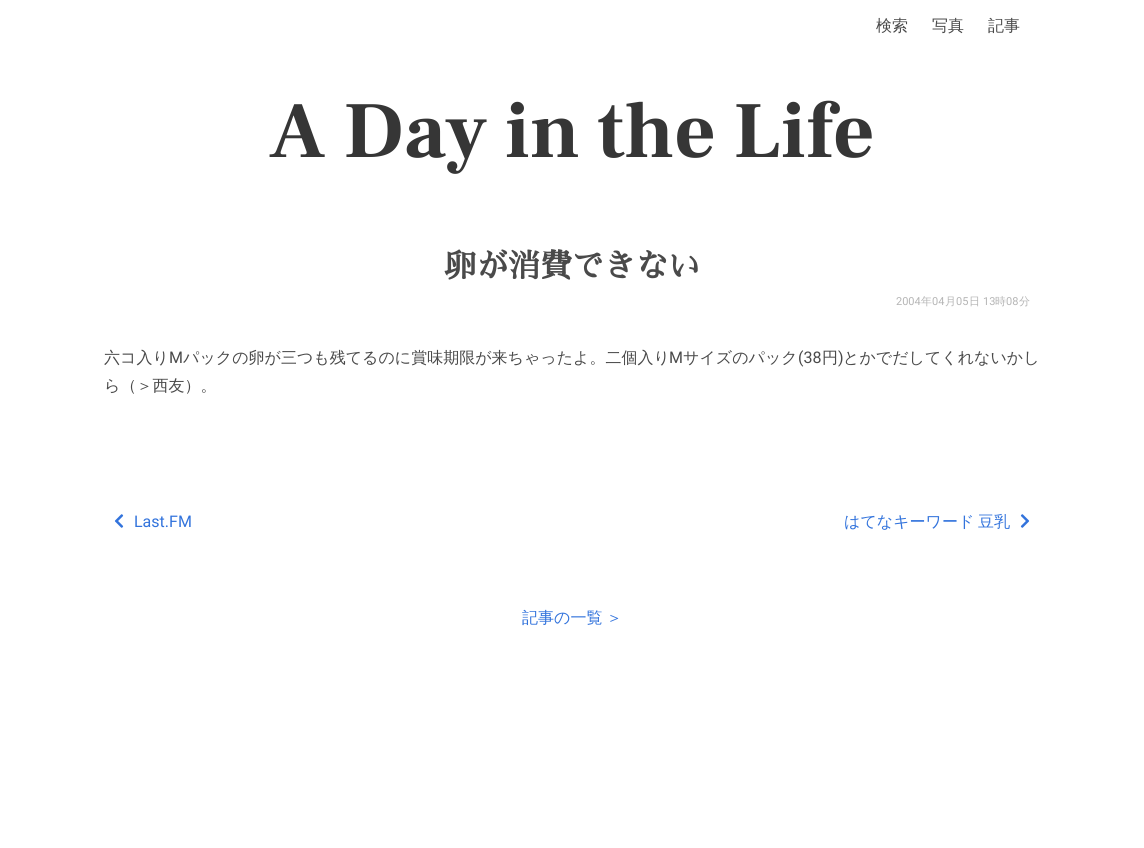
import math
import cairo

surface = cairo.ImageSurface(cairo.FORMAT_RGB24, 1144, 848)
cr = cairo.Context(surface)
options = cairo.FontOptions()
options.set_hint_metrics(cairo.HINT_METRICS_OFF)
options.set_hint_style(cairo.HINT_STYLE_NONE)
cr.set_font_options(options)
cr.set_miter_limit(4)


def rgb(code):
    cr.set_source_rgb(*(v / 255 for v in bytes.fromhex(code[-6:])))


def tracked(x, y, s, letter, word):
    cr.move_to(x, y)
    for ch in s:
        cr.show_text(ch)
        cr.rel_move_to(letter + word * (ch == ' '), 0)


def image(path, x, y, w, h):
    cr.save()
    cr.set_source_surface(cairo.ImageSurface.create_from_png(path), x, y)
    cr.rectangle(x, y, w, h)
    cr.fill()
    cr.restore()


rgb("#ffffff")
cr.paint()
image("img/1.png", 114, 514, 10, 14)
image("img/2.png", 1020, 514, 10, 14)
cr.select_font_face("WenQuanYi Zen Hei Medium")
cr.set_font_size(16)
rgb("#4a4a4a")
for x, y, s in [
    (876, 31, "検索"),
    (932, 31, "写真"),
    (988, 31, "記事"),
]:
    cr.move_to(x, y)
    cr.show_text(s)
cr.select_font_face("Frank Ruhl Libre", cairo.FONT_SLANT_NORMAL, cairo.FONT_WEIGHT_BOLD)
cr.set_font_size(80)
rgb("#363636")
cr.move_to(269, 157)
cr.show_text("A Day in the Life")
cr.select_font_face("Sawarabi Mincho", cairo.FONT_SLANT_NORMAL, cairo.FONT_WEIGHT_BOLD)
cr.set_font_size(32)
rgb("#4a4a4a")
cr.move_to(444, 277)
cr.show_text("卵が消費できない")
cr.select_font_face("Roboto")
cr.set_font_size(11)
rgb("#b5b5b5")
cr.move_to(896, 305)
cr.show_text("2004")
cr.select_font_face("WenQuanYi Zen Hei Medium")
cr.move_to(921, 305)
cr.show_text("年")
cr.select_font_face("Roboto")
cr.move_to(932, 305)
cr.show_text("04")
cr.select_font_face("WenQuanYi Zen Hei Medium")
cr.move_to(945, 305)
cr.show_text("月")
cr.select_font_face("Roboto")
cr.move_to(956, 305)
cr.show_text("05")
cr.select_font_face("WenQuanYi Zen Hei Medium")
cr.move_to(969, 305)
cr.show_text("日")
cr.select_font_face("Roboto")
cr.move_to(983, 305)
cr.show_text("13")
cr.select_font_face("WenQuanYi Zen Hei Medium")
cr.move_to(995, 305)
cr.show_text("時")
cr.select_font_face("Roboto")
cr.move_to(1006, 305)
cr.show_text("08")
cr.select_font_face("WenQuanYi Zen Hei Medium")
cr.move_to(1019, 305)
cr.show_text("分")
cr.set_font_size(16)
rgb("#4a4a4a")
cr.move_to(104, 363)
cr.show_text("六コ入り")
cr.select_font_face("Roboto")
cr.move_to(169, 363)
cr.show_text("M")
cr.select_font_face("WenQuanYi Zen Hei Medium")
cr.move_to(183, 363)
cr.show_text("パックの卵が三つも残てるのに賞味期限が来ちゃったよ。二個入り")
cr.select_font_face("Roboto")
cr.move_to(669, 363)
cr.show_text("M")
cr.select_font_face("WenQuanYi Zen Hei Medium")
cr.move_to(683, 363)
cr.show_text("サイズのパック")
cr.select_font_face("Roboto")
cr.move_to(798, 363)
cr.show_text("(38")
cr.select_font_face("WenQuanYi Zen Hei Medium")
cr.move_to(822, 363)
cr.show_text("円")
cr.select_font_face("Roboto")
cr.move_to(838, 363)
cr.show_text(")")
cr.select_font_face("WenQuanYi Zen Hei Medium")
cr.move_to(843, 363)
cr.show_text("とかでだしてくれないかし")
cr.move_to(104, 391)
cr.show_text("ら（＞西友）。")
cr.select_font_face("Roboto")
rgb("#3273dc")
cr.move_to(134, 527)
cr.show_text("Last.FM")
cr.select_font_face("WenQuanYi Zen Hei Medium")
tracked(844, 527, "はてなキーワード 豆乳", 0, -1)
tracked(522, 623, "記事の一覧 ＞", 0, -1)
surface.write_to_png("page.png")
